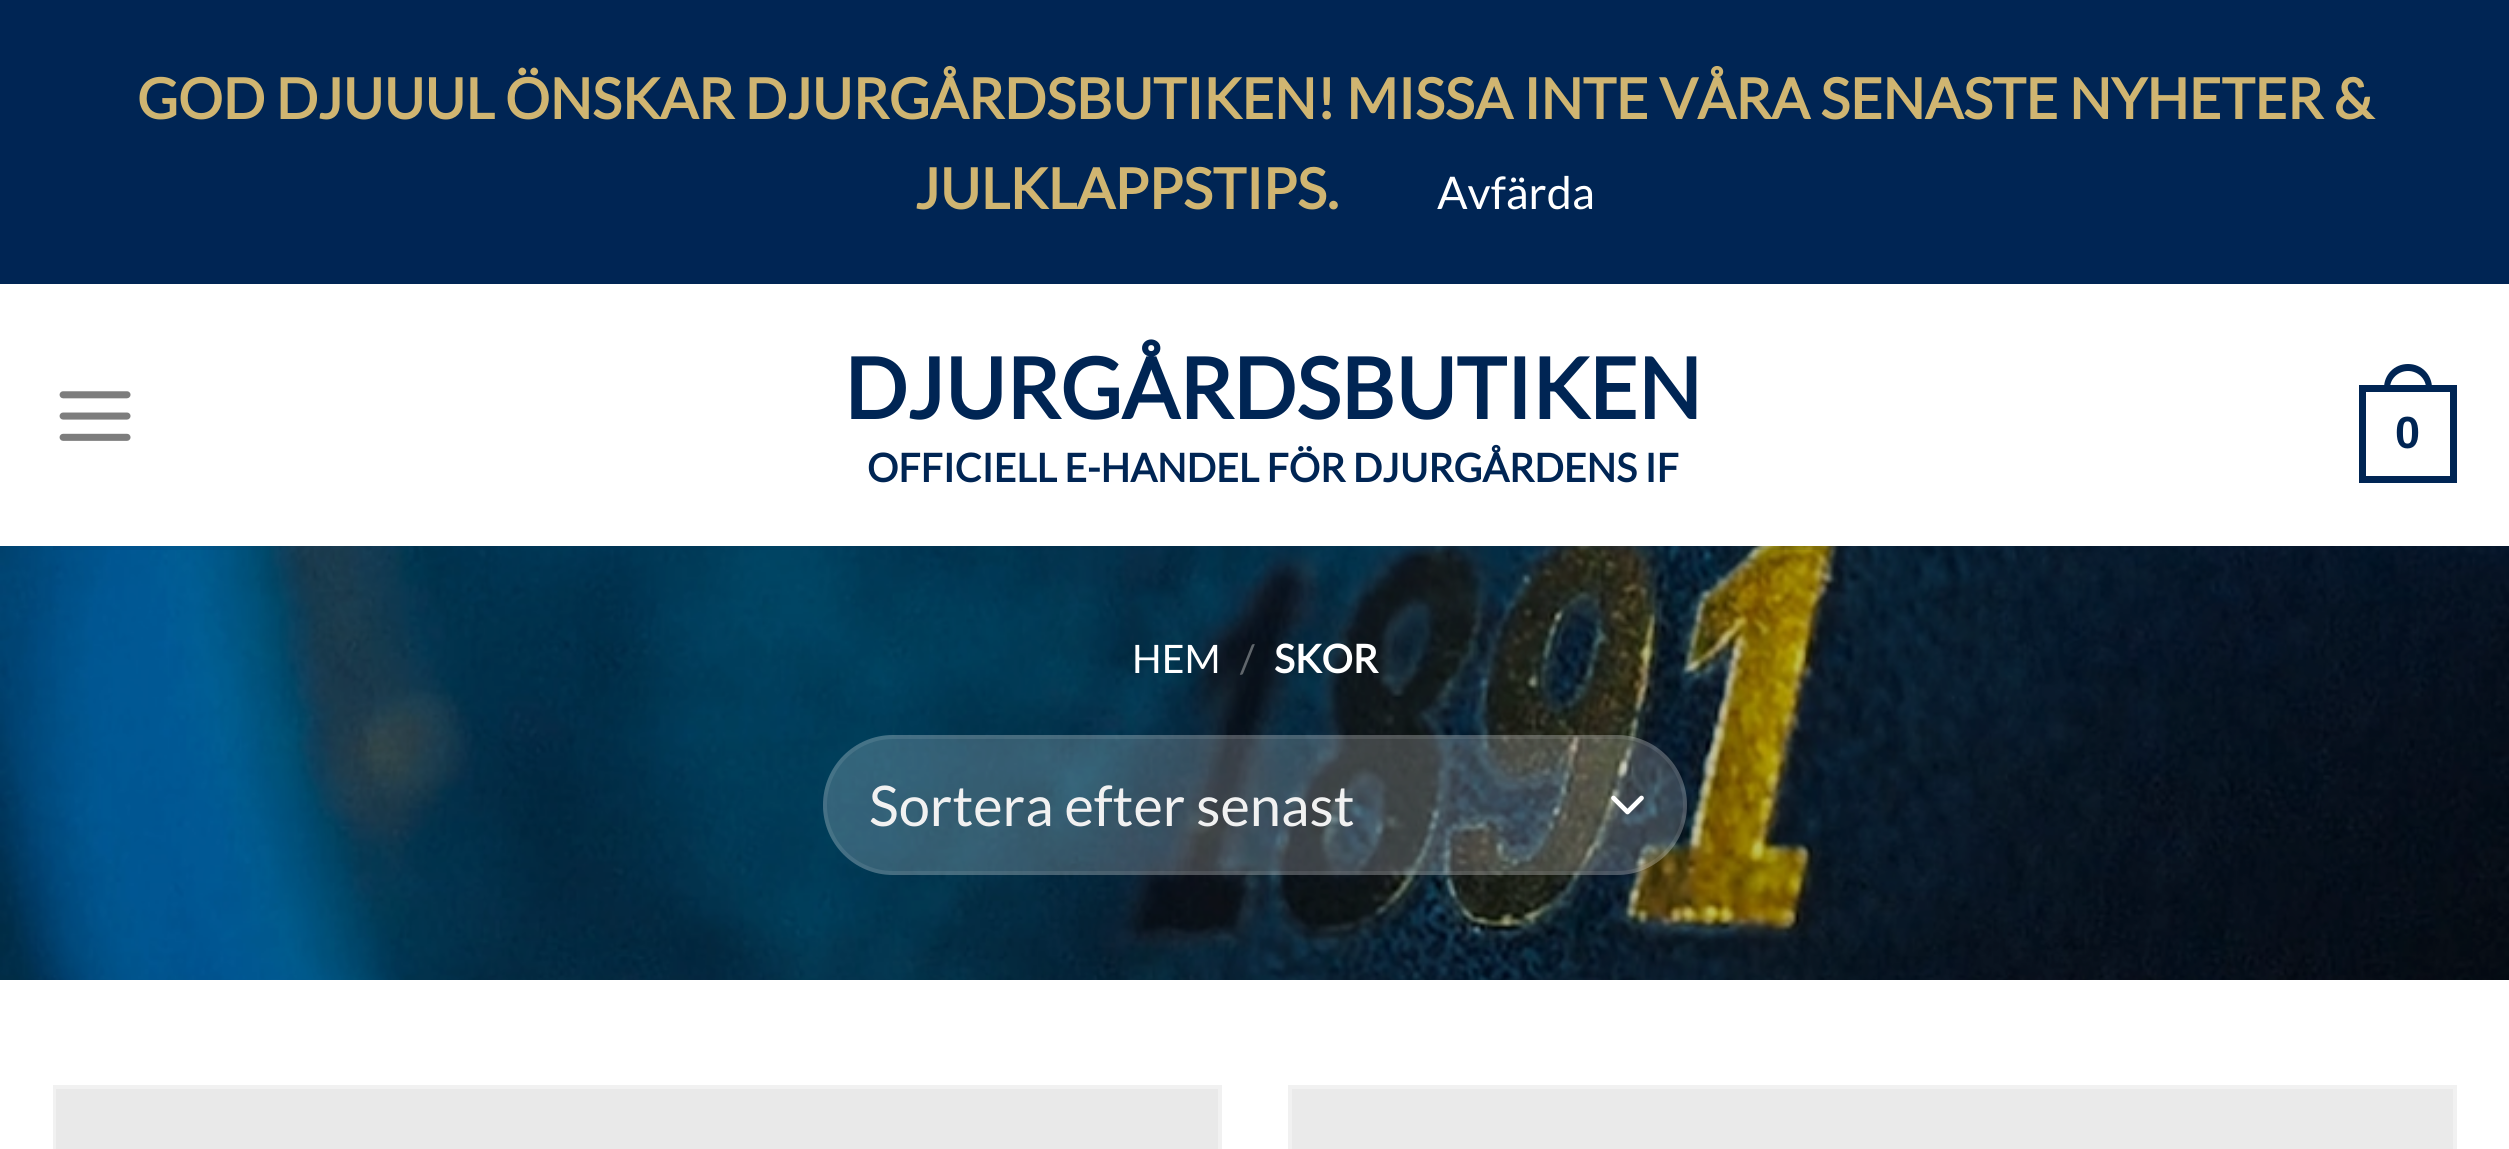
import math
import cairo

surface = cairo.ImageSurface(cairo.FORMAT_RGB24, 2509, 1149)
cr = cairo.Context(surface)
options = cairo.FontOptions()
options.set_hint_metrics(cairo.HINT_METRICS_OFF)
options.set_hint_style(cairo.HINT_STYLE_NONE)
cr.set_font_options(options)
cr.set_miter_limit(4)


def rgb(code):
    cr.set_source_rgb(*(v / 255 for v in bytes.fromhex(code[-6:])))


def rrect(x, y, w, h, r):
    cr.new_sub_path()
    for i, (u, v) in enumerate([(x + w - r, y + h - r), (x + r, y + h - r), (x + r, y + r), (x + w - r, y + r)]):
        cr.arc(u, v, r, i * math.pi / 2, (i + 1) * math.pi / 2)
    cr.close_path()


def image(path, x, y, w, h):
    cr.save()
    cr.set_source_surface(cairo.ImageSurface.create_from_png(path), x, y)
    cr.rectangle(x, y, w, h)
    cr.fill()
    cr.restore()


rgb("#ffffff")
cr.paint()
rgb("#002554")
cr.rectangle(0, 0, 2509, 284)
cr.fill()
image("img/1.png", 59, 391, 72, 50)
cr.rectangle(2362.5, 388.5, 91, 91)
cr.set_line_width(7)
cr.stroke()
cr.set_fill_rule(cairo.FILL_RULE_EVEN_ODD)
cr.new_path()
cr.move_to(2408, 364)
cr.curve_to(2422, 364, 2432, 375, 2432, 388)
cr.line_to(2432, 392)
cr.line_to(2384, 392)
cr.line_to(2384, 388)
cr.curve_to(2384, 375, 2394, 364, 2408, 364)
cr.close_path()
cr.move_to(2408, 371)
cr.curve_to(2418, 371, 2426, 379, 2426, 388)
cr.line_to(2426, 392)
cr.line_to(2390, 392)
cr.line_to(2390, 388)
cr.curve_to(2390, 379, 2398, 371, 2408, 371)
cr.close_path()
cr.fill()
image("img/2.png", 0, 546, 2509, 434)
cr.set_source_rgba(0, 0.145, 0.329, 0.1)
cr.rectangle(53, 546, 2404, 4)
cr.fill()
cr.set_source_rgba(1, 1, 1, 0.2)
rrect(823, 735, 864, 140, 70)
cr.fill()
cr.new_path()
cr.move_to(1613.5, 798)
cr.line_to(1627.5, 812)
cr.line_to(1641.5, 798)
rgb("#ffffff")
cr.set_line_width(4.7)
cr.set_line_cap(cairo.LINE_CAP_ROUND)
cr.set_line_join(cairo.LINE_JOIN_ROUND)
cr.stroke()
rrect(825, 737, 860, 136, 68)
cr.set_source_rgba(1, 1, 1, 0.09)
cr.set_line_width(4)
cr.set_line_cap(cairo.LINE_CAP_BUTT)
cr.set_line_join(cairo.LINE_JOIN_MITER)
cr.stroke()
cr.rectangle(55, 1087, 1165, 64)
rgb("#f1f1f1")
cr.stroke()
rgb("#e9e9e9")
cr.rectangle(56, 1089, 1162, 60)
cr.fill()
cr.rectangle(1290, 1087, 1165, 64)
rgb("#f1f1f1")
cr.stroke()
rgb("#eaeaea")
cr.rectangle(1292, 1089, 1161, 60)
cr.fill()
cr.select_font_face("Lato", cairo.FONT_SLANT_NORMAL, cairo.FONT_WEIGHT_BOLD)
cr.set_font_size(56)
rgb("#d0b571")
cr.move_to(137, 119)
cr.show_text("GOD DJUUUL ÖNSKAR DJURGÅRDSBUTIKEN! MISSA INTE VÅRA SENASTE NYHETER &")
cr.move_to(915, 209)
cr.show_text("JULKLAPPSTIPS.")
cr.select_font_face("Lato")
cr.set_font_size(45)
rgb("#ffffff")
cr.move_to(1437, 209)
cr.show_text("Avfärda")
cr.select_font_face("Lato", cairo.FONT_SLANT_NORMAL, cairo.FONT_WEIGHT_BOLD)
cr.set_font_size(84)
rgb("#002554")
cr.move_to(844, 419)
cr.show_text("DJURGÅRDSBUTIKEN")
cr.set_font_size(39.2)
cr.move_to(867, 482)
cr.show_text("OFFICIELL E-HANDEL FÖR DJURGÅRDENS IF")
cr.select_font_face("Liberation Sans", cairo.FONT_SLANT_NORMAL, cairo.FONT_WEIGHT_BOLD)
cr.set_font_size(45)
cr.move_to(2395, 448)
cr.show_text("0")
cr.select_font_face("Lato")
cr.set_font_size(39.2)
rgb("#ffffff")
cr.move_to(1132, 673)
cr.show_text("HEM")
rgb("#60666b")
cr.move_to(1240, 673)
cr.show_text("/")
cr.select_font_face("Lato", cairo.FONT_SLANT_NORMAL, cairo.FONT_WEIGHT_BOLD)
rgb("#ffffff")
cr.move_to(1274, 673)
cr.show_text("SKOR")
cr.select_font_face("Lato")
cr.set_font_size(56)
rgb("#f1f1f1")
cr.move_to(869, 826)
cr.show_text("Sortera efter senast")
surface.write_to_png("page.png")
